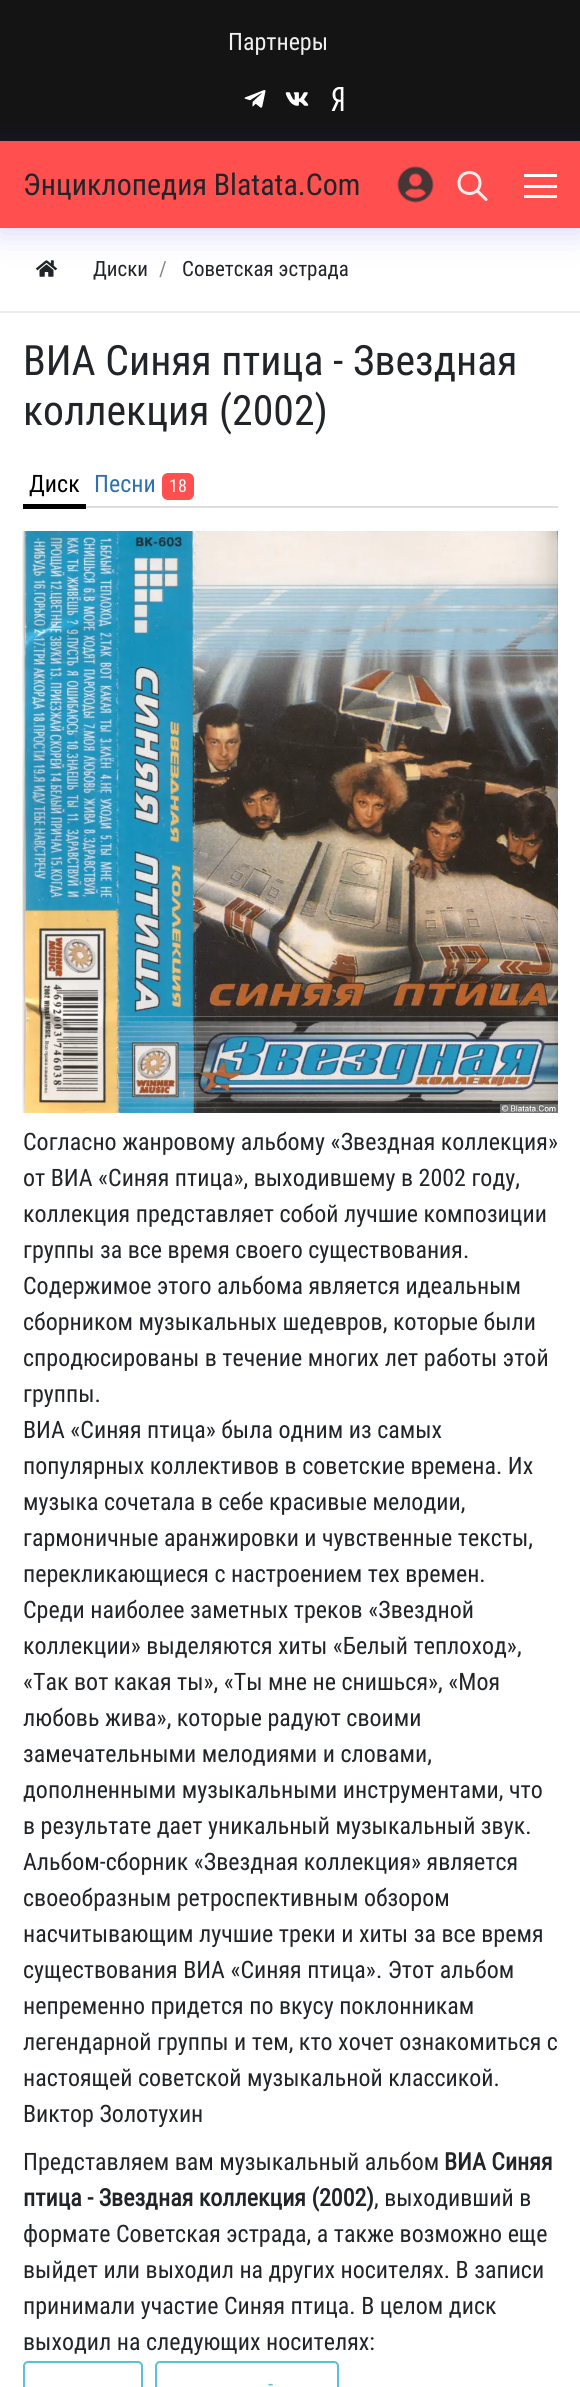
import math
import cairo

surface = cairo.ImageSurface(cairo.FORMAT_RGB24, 580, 2387)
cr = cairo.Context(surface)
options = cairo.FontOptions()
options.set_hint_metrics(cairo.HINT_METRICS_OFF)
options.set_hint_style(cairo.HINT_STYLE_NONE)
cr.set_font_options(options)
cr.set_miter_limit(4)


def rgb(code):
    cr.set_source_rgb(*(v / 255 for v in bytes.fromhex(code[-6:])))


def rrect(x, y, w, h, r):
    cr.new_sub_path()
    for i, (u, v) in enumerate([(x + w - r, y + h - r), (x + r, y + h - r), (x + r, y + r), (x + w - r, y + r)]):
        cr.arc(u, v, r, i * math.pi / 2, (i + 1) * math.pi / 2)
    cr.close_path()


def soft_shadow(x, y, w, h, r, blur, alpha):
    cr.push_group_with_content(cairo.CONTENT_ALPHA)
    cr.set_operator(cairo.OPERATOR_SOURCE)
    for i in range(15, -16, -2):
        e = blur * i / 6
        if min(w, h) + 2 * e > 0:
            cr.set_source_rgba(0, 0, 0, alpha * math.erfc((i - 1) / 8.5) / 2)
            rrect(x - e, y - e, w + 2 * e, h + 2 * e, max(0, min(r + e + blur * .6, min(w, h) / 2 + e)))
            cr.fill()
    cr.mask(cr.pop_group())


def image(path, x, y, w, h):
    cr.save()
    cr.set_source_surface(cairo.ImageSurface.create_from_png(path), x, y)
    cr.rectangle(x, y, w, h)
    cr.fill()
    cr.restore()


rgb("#ffffff")
cr.paint()
rgb("#141414")
cr.rectangle(0, 0, 580, 141)
cr.fill()
image("img/1.png", 244, 90, 22, 18)
image("img/2.png", 285, 92, 24, 14)
image("img/3.png", 331, 87, 13, 24)
image("img/5.png", 36, 260, 21, 17)
rgb("#2e38dc")
soft_shadow(0, 146, 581, 87, 0, 15, 0.2)
rgb("#ff4f4f")
cr.rectangle(0, 141, 580, 87)
cr.fill()
image("img/4.png", 397, 166, 37, 37)
cr.new_path()
cr.move_to(486, 199.5)
cr.line_to(477, 190.5)
cr.move_to(480, 183)
cr.curve_to(480, 197, 459, 197, 459, 183)
cr.curve_to(459, 169, 480, 169, 480, 183)
cr.close_path()
rgb("#ffeded")
cr.set_line_width(3)
cr.set_line_cap(cairo.LINE_CAP_ROUND)
cr.set_line_join(cairo.LINE_JOIN_ROUND)
cr.stroke()
for x, y, w, h, color in [
    (524, 185, 33, 3, "#ffffff"),
    (524, 174, 33, 3, "#ffffff"),
    (524, 195, 33, 3, "#ffffff"),
    (0, 311, 580, 2, "#ededed"),
    (86, 506, 472, 2, "#dddddd"),
    (23, 504, 63, 5, "#000000"),
]:
    rgb(color)
    cr.rectangle(x, y, w, h)
    cr.fill()
rgb("#ff4f4f")
rrect(162, 473, 32, 27, 6)
cr.fill()
image("img/6.png", 22, 531, 536, 582)
rrect(24, 2362, 118, 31, 4)
rgb("#5bc0de")
cr.set_line_width(2)
cr.set_line_cap(cairo.LINE_CAP_BUTT)
cr.set_line_join(cairo.LINE_JOIN_MITER)
cr.stroke()
rrect(156, 2362, 182, 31, 4)
cr.stroke()
cr.select_font_face("Roboto Condensed")
cr.set_font_size(24)
rgb("#f0f0f0")
cr.move_to(228, 50)
cr.show_text("Партнеры")
cr.set_font_size(30)
rgb("#212529")
cr.move_to(23, 195)
cr.show_text("Энциклопедия Blatata.Com")
cr.set_font_size(21)
cr.move_to(93, 276)
cr.show_text("Диски")
rgb("#888888")
cr.move_to(159, 276)
cr.show_text("/")
rgb("#212529")
cr.move_to(182, 276)
cr.show_text("Советская эстрада")
cr.set_font_size(41.75)
cr.move_to(23, 375)
cr.show_text("ВИА Синяя птица - Звездная")
cr.move_to(23, 425)
cr.show_text("коллекция (2002)")
cr.set_font_size(24)
rgb("#000000")
cr.move_to(29, 492)
cr.show_text("Диск")
rgb("#2f70af")
cr.move_to(94, 492)
cr.show_text("Песни")
cr.set_font_size(18)
rgb("#ffffff")
cr.move_to(169, 492)
cr.show_text("18")
cr.set_font_size(24)
rgb("#212529")
for x, y, s in [
    (23, 1150, "Согласно жанровому альбому «Звездная коллекция»"),
    (23, 1186, "от ВИА «Синяя птица», выходившему в 2002 году,"),
    (23, 1222, "коллекция представляет собой лучшие композиции"),
    (23, 1258, "группы за все время своего существования."),
    (23, 1294, "Содержимое этого альбома является идеальным"),
    (23, 1330, "сборником музыкальных шедевров, которые были"),
    (23, 1366, "спродюсированы в течение многих лет работы этой"),
    (23, 1402, "группы."),
    (23, 1438, "ВИА «Синяя птица» была одним из самых"),
    (23, 1474, "популярных коллективов в советские времена. Их"),
    (23, 1510, "музыка сочетала в себе красивые мелодии,"),
    (23, 1546, "гармоничные аранжировки и чувственные тексты,"),
    (23, 1582, "перекликающиеся с настроением тех времен."),
    (23, 1618, "Среди наиболее заметных треков «Звездной"),
    (23, 1654, "коллекции» выделяются хиты «Белый теплоход»,"),
    (23, 1690, "«Так вот какая ты», «Ты мне не снишься», «Моя"),
    (23, 1726, "любовь жива», которые радуют своими"),
    (23, 1762, "замечательными мелодиями и словами,"),
    (23, 1798, "дополненными музыкальными инструментами, что"),
    (23, 1834, "в результате дает уникальный музыкальный звук."),
    (23, 1870, "Альбом-сборник «Звездная коллекция» является"),
    (23, 1906, "своеобразным ретроспективным обзором"),
    (23, 1942, "насчитывающим лучшие треки и хиты за все время"),
    (23, 1978, "существования ВИА «Синяя птица». Этот альбом"),
    (23, 2014, "непременно придется по вкусу поклонникам"),
    (23, 2050, "легендарной группы и тем, кто хочет ознакомиться с"),
    (23, 2086, "настоящей советской музыкальной классикой."),
    (23, 2122, "Виктор Золотухин"),
    (23, 2170, "Представляем вам музыкальный альбом"),
]:
    cr.move_to(x, y)
    cr.show_text(s)
cr.select_font_face("Roboto Condensed", cairo.FONT_SLANT_NORMAL, cairo.FONT_WEIGHT_BOLD)
cr.move_to(444, 2170)
cr.show_text("ВИА Синяя")
cr.move_to(23, 2206)
cr.show_text("птица - Звездная коллекция (2002)")
cr.select_font_face("Roboto Condensed")
for x, y, s in [
    (374, 2206, ", выходивший в"),
    (23, 2242, "формате Советская эстрада, а также возможно еще"),
    (23, 2278, "выйдет или выходил на других носителях. В записи"),
    (23, 2314, "принимали участие Синяя птица. В целом диск"),
    (23, 2350, "выходил на следующих носителях:"),
]:
    cr.move_to(x, y)
    cr.show_text(s)
cr.set_font_size(21)
rgb("#5bc0de")
cr.move_to(268, 2391)
cr.show_text("-")
surface.write_to_png("page.png")
